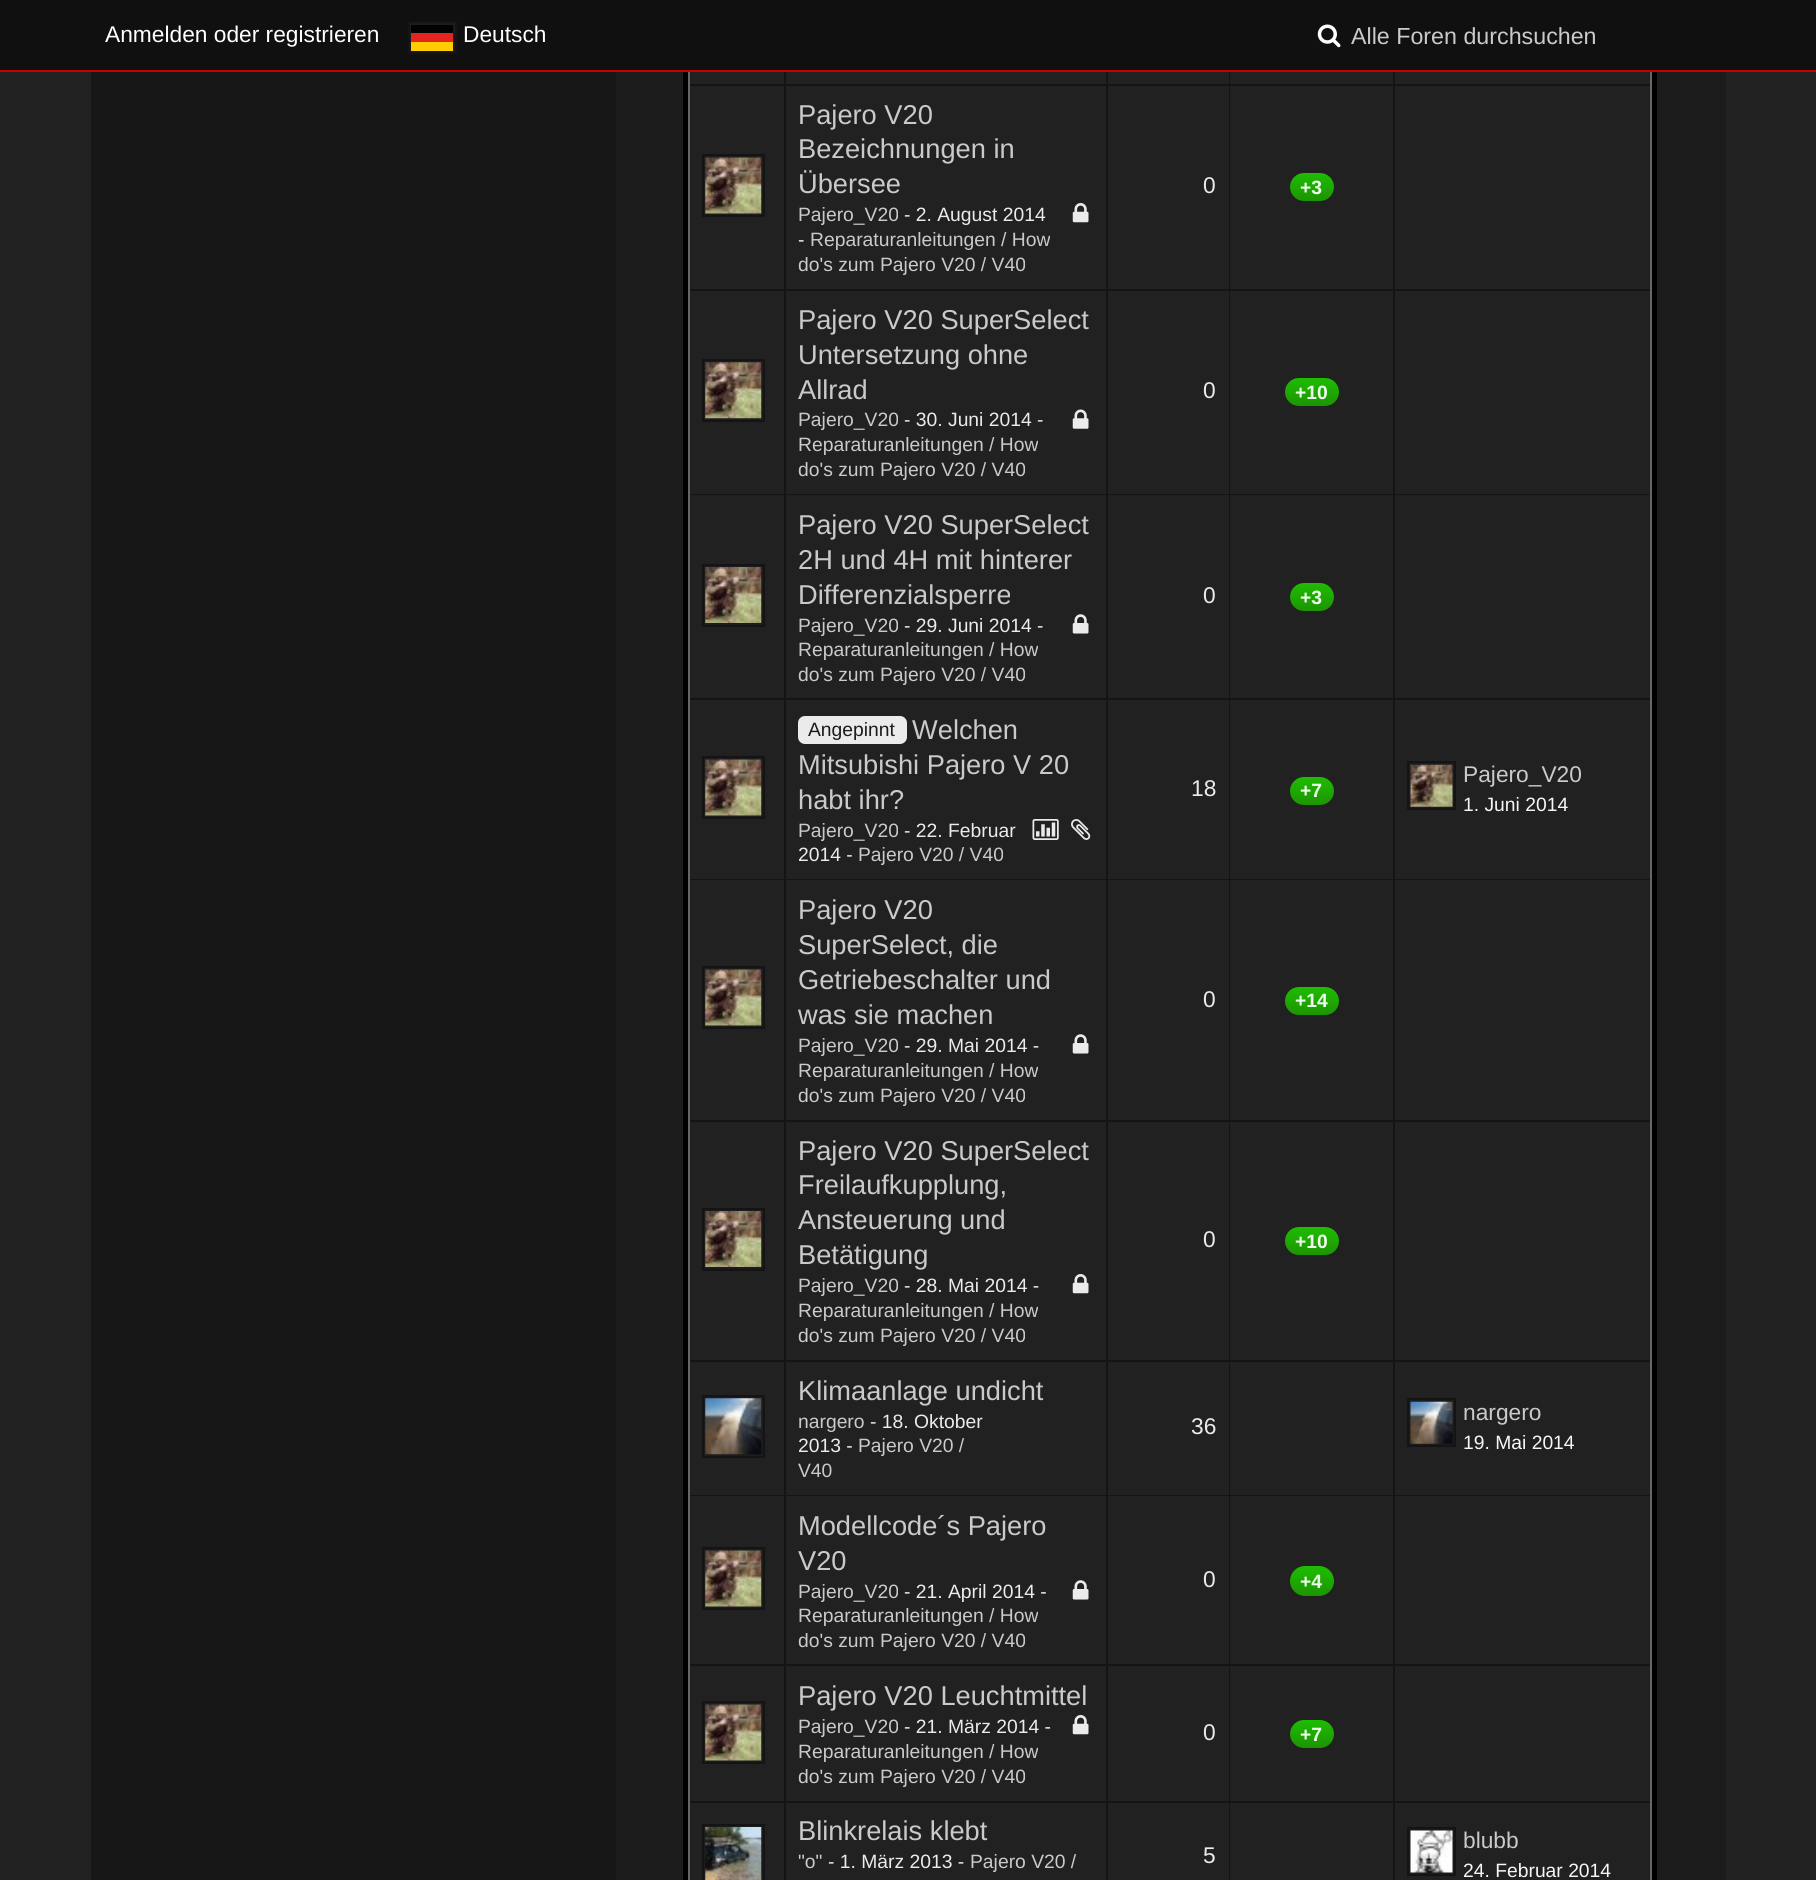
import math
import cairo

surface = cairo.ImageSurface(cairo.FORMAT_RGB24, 1816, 1880)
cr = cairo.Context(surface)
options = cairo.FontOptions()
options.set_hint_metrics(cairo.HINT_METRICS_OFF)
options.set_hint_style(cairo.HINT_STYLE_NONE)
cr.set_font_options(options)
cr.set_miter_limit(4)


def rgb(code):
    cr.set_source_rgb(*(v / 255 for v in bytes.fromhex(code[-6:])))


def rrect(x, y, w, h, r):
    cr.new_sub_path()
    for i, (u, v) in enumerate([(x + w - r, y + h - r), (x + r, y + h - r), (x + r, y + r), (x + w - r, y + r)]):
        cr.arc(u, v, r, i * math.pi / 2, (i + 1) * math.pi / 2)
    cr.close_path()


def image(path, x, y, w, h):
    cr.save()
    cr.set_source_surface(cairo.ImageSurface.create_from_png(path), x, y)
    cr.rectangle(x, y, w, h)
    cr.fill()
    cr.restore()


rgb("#222222")
cr.paint()
rgb("#1c1c1c")
cr.rectangle(616, 72, 1110, 1808)
cr.fill()
rgb("#666666")
cr.rectangle(688, 72, 964, 1808)
cr.fill()
cr.rectangle(685.5, -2.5, 969, 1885)
rgb("#000000")
cr.set_line_width(5)
cr.stroke()
rgb("#101010")
cr.rectangle(0, 0, 1816, 70)
cr.fill()
rgb("#cc0000")
cr.rectangle(0, 70, 1816, 2)
cr.fill()
rgb("#1c1c1c")
cr.rectangle(409, 22, 47, 31)
cr.fill_preserve()
rgb("#141414")
cr.set_line_width(2)
cr.stroke()
for x, y, w, h, color in [
    (411, 25, 42, 8, "#010202"),
    (411, 33, 42, 9, "#e52420"),
    (411, 42, 42, 9, "#ffcc04"),
]:
    rgb(color)
    cr.rectangle(x, y, w, h)
    cr.fill()
image("img/1.png", 1317, 24, 24, 24)
for x, y, w, h, color in [
    (91, 72, 525, 1808, "#171717"),
    (690, 72, 94, 12, "#212121"),
    (784, 72, 2, 1808, "#141414"),
    (690, 84, 96, 2, "#141414"),
    (786, 72, 320, 12, "#212121"),
    (1106, 72, 2, 1808, "#141414"),
    (786, 84, 322, 2, "#141414"),
    (1108, 72, 121, 12, "#212121"),
    (1229, 72, 1, 1808, "#141414"),
    (1108, 84, 122, 2, "#141414"),
    (1230, 72, 163, 12, "#212121"),
    (1393, 72, 2, 1808, "#141414"),
    (1230, 84, 420, 2, "#141414"),
    (1395, 72, 255, 12, "#212121"),
    (690, 86, 94, 203, "#212121"),
    (690, 289, 960, 2, "#141414"),
]:
    rgb(color)
    cr.rectangle(x, y, w, h)
    cr.fill()
rgb("#1c1c1c")
cr.rectangle(703, 155, 61, 61)
cr.fill_preserve()
rgb("#141414")
cr.stroke()
image("img/2.png", 705, 157, 57, 57)
rgb("#212121")
cr.rectangle(786, 86, 320, 203)
cr.fill()
image("img/3.png", 1072, 203, 17, 20)
cr.rectangle(1108, 86, 121, 203)
cr.fill()
cr.rectangle(1230, 86, 163, 203)
cr.fill()
gradient = cairo.LinearGradient(1312, 173, 1312, 201)
gradient.add_color_stop_rgba(0, 0.118, 0.741, 0.008, 1)
gradient.add_color_stop_rgba(1, 0.114, 0.58, 0.008, 1)
cr.set_source(gradient)
rrect(1290, 173, 44, 28, 14)
cr.fill()
for x, y, w, h, color in [
    (1395, 86, 255, 203, "#212121"),
    (690, 291, 94, 203, "#212121"),
    (690, 494, 960, 1, "#141414"),
]:
    rgb(color)
    cr.rectangle(x, y, w, h)
    cr.fill()
rgb("#1c1c1c")
cr.rectangle(703, 360, 61, 61)
cr.fill_preserve()
rgb("#141414")
cr.stroke()
image("img/4.png", 705, 362, 57, 57)
rgb("#212121")
cr.rectangle(786, 291, 320, 203)
cr.fill()
image("img/5.png", 1072, 409, 17, 20)
cr.rectangle(1108, 291, 121, 203)
cr.fill()
cr.rectangle(1230, 291, 163, 203)
cr.fill()
gradient = cairo.LinearGradient(1312, 378, 1312, 406)
gradient.add_color_stop_rgba(0, 0.118, 0.741, 0.008, 1)
gradient.add_color_stop_rgba(1, 0.114, 0.58, 0.008, 1)
cr.set_source(gradient)
rrect(1285, 378, 54, 28, 14)
cr.fill()
for x, y, w, h, color in [
    (1395, 291, 255, 203, "#212121"),
    (690, 495, 94, 203, "#212121"),
    (690, 698, 960, 2, "#141414"),
]:
    rgb(color)
    cr.rectangle(x, y, w, h)
    cr.fill()
rgb("#1c1c1c")
cr.rectangle(703, 565, 61, 61)
cr.fill_preserve()
rgb("#141414")
cr.stroke()
image("img/6.png", 705, 567, 57, 56)
rgb("#212121")
cr.rectangle(786, 495, 320, 203)
cr.fill()
image("img/7.png", 1072, 614, 17, 20)
cr.rectangle(1108, 495, 121, 203)
cr.fill()
cr.rectangle(1230, 495, 163, 203)
cr.fill()
gradient = cairo.LinearGradient(1312, 583, 1312, 611)
gradient.add_color_stop_rgba(0, 0.118, 0.741, 0.008, 1)
gradient.add_color_stop_rgba(1, 0.114, 0.58, 0.008, 1)
cr.set_source(gradient)
rrect(1290, 583, 44, 28, 14)
cr.fill()
for x, y, w, h, color in [
    (1395, 495, 255, 203, "#212121"),
    (690, 700, 94, 179, "#212121"),
    (690, 879, 960, 1, "#141414"),
]:
    rgb(color)
    cr.rectangle(x, y, w, h)
    cr.fill()
rgb("#1c1c1c")
cr.rectangle(703, 757, 61, 61)
cr.fill_preserve()
rgb("#141414")
cr.stroke()
image("img/8.png", 705, 759, 57, 57)
rgb("#212121")
cr.rectangle(786, 700, 320, 179)
cr.fill()
rgb("#ebebeb")
rrect(798, 716, 109, 28, 7)
cr.fill()
image("img/9.png", 1032, 819, 27, 21)
image("img/10.png", 1071, 819, 20, 21)
rgb("#212121")
cr.rectangle(1108, 700, 121, 179)
cr.fill()
cr.rectangle(1230, 700, 163, 179)
cr.fill()
gradient = cairo.LinearGradient(1312, 777, 1312, 805)
gradient.add_color_stop_rgba(0, 0.118, 0.741, 0.008, 1)
gradient.add_color_stop_rgba(1, 0.114, 0.58, 0.008, 1)
cr.set_source(gradient)
rrect(1290, 777, 44, 28, 14)
cr.fill()
rgb("#212121")
cr.rectangle(1395, 700, 255, 179)
cr.fill()
rgb("#1c1c1c")
cr.rectangle(1408, 762, 47, 47)
cr.fill_preserve()
rgb("#141414")
cr.stroke()
image("img/11.png", 1410, 764, 43, 43)
rgb("#212121")
cr.rectangle(690, 880, 94, 240)
cr.fill()
rgb("#141414")
cr.rectangle(690, 1120, 960, 2)
cr.fill()
rgb("#1c1c1c")
cr.rectangle(703, 967, 61, 61)
cr.fill_preserve()
rgb("#141414")
cr.stroke()
image("img/8.png", 705, 969, 57, 57)
rgb("#212121")
cr.rectangle(786, 880, 320, 240)
cr.fill()
image("img/7.png", 1072, 1034, 17, 20)
cr.rectangle(1108, 880, 121, 240)
cr.fill()
cr.rectangle(1230, 880, 163, 240)
cr.fill()
gradient = cairo.LinearGradient(1312, 987, 1312, 1015)
gradient.add_color_stop_rgba(0, 0.118, 0.741, 0.008, 1)
gradient.add_color_stop_rgba(1, 0.114, 0.58, 0.008, 1)
cr.set_source(gradient)
rrect(1285, 987, 54, 28, 14)
cr.fill()
for x, y, w, h, color in [
    (1395, 880, 255, 240, "#212121"),
    (690, 1122, 94, 238, "#212121"),
    (690, 1360, 960, 2, "#141414"),
]:
    rgb(color)
    cr.rectangle(x, y, w, h)
    cr.fill()
rgb("#1c1c1c")
cr.rectangle(703, 1209, 61, 61)
cr.fill_preserve()
rgb("#141414")
cr.stroke()
image("img/6.png", 705, 1211, 57, 56)
rgb("#212121")
cr.rectangle(786, 1122, 320, 238)
cr.fill()
image("img/3.png", 1072, 1274, 17, 20)
cr.rectangle(1108, 1122, 121, 238)
cr.fill()
cr.rectangle(1230, 1122, 163, 238)
cr.fill()
gradient = cairo.LinearGradient(1312, 1227, 1312, 1255)
gradient.add_color_stop_rgba(0, 0.118, 0.741, 0.008, 1)
gradient.add_color_stop_rgba(1, 0.114, 0.58, 0.008, 1)
cr.set_source(gradient)
rrect(1285, 1227, 54, 28, 14)
cr.fill()
for x, y, w, h, color in [
    (1395, 1122, 255, 238, "#212121"),
    (690, 1362, 94, 133, "#212121"),
    (690, 1495, 960, 1, "#141414"),
]:
    rgb(color)
    cr.rectangle(x, y, w, h)
    cr.fill()
rgb("#1c1c1c")
cr.rectangle(703, 1396, 61, 61)
cr.fill_preserve()
rgb("#141414")
cr.stroke()
image("img/12.png", 705, 1398, 57, 57)
for x, y, w, h, color in [
    (786, 1362, 320, 133, "#212121"),
    (1108, 1362, 121, 133, "#212121"),
    (1230, 1362, 163, 133, "#212121"),
    (1395, 1362, 255, 133, "#212121"),
]:
    rgb(color)
    cr.rectangle(x, y, w, h)
    cr.fill()
rgb("#1c1c1c")
cr.rectangle(1408, 1399, 47, 47)
cr.fill_preserve()
rgb("#141414")
cr.stroke()
image("img/13.png", 1410, 1401, 43, 43)
rgb("#212121")
cr.rectangle(690, 1496, 94, 168)
cr.fill()
rgb("#141414")
cr.rectangle(690, 1664, 960, 2)
cr.fill()
rgb("#1c1c1c")
cr.rectangle(703, 1548, 61, 61)
cr.fill_preserve()
rgb("#141414")
cr.stroke()
image("img/8.png", 705, 1550, 57, 57)
rgb("#212121")
cr.rectangle(786, 1496, 320, 168)
cr.fill()
image("img/7.png", 1072, 1580, 17, 20)
cr.rectangle(1108, 1496, 121, 168)
cr.fill()
cr.rectangle(1230, 1496, 163, 168)
cr.fill()
gradient = cairo.LinearGradient(1312, 1566, 1312, 1596)
gradient.add_color_stop_rgba(0, 0.118, 0.741, 0.008, 1)
gradient.add_color_stop_rgba(1, 0.114, 0.58, 0.008, 1)
cr.set_source(gradient)
rrect(1290, 1566, 44, 30, 15)
cr.fill()
for x, y, w, h, color in [
    (1395, 1496, 255, 168, "#212121"),
    (690, 1666, 94, 135, "#212121"),
    (690, 1801, 960, 2, "#141414"),
]:
    rgb(color)
    cr.rectangle(x, y, w, h)
    cr.fill()
rgb("#1c1c1c")
cr.rectangle(703, 1702, 61, 61)
cr.fill_preserve()
rgb("#141414")
cr.stroke()
image("img/8.png", 705, 1704, 57, 57)
rgb("#212121")
cr.rectangle(786, 1666, 320, 135)
cr.fill()
image("img/3.png", 1072, 1715, 17, 20)
cr.rectangle(1108, 1666, 121, 135)
cr.fill()
cr.rectangle(1230, 1666, 163, 135)
cr.fill()
gradient = cairo.LinearGradient(1312, 1720, 1312, 1748)
gradient.add_color_stop_rgba(0, 0.118, 0.741, 0.008, 1)
gradient.add_color_stop_rgba(1, 0.114, 0.58, 0.008, 1)
cr.set_source(gradient)
rrect(1290, 1720, 44, 28, 14)
cr.fill()
rgb("#212121")
cr.rectangle(1395, 1666, 255, 135)
cr.fill()
cr.rectangle(690, 1803, 94, 77)
cr.fill()
rgb("#1c1c1c")
cr.rectangle(703, 1825, 61, 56)
cr.fill_preserve()
rgb("#141414")
cr.stroke()
image("img/14.png", 705, 1827, 57, 53)
for x, y, w, h, color in [
    (786, 1803, 320, 77, "#212121"),
    (1108, 1803, 121, 77, "#212121"),
    (1230, 1803, 163, 77, "#212121"),
    (1395, 1803, 255, 77, "#212121"),
]:
    rgb(color)
    cr.rectangle(x, y, w, h)
    cr.fill()
rgb("#1c1c1c")
cr.rectangle(1408, 1828, 47, 47)
cr.fill_preserve()
rgb("#141414")
cr.stroke()
image("img/15.png", 1410, 1830, 43, 43)
cr.select_font_face("Liberation Sans")
cr.set_font_size(22.75)
rgb("#ffffff")
cr.move_to(105, 42)
cr.show_text("Anmelden oder registrieren")
cr.move_to(463, 42)
cr.show_text("Deutsch")
cr.set_font_size(23.25)
rgb("#cacaca")
cr.move_to(1351, 44)
cr.show_text("Alle Foren durchsuchen")
cr.set_font_size(27.25)
for x, y, s in [
    (798, 124, "Pajero V20"),
    (798, 158, "Bezeichnungen in"),
    (798, 193, "Übersee"),
]:
    cr.move_to(x, y)
    cr.show_text(s)
cr.set_font_size(19.3)
cr.move_to(798, 221)
cr.show_text("Pajero_V20")
rgb("#ebebeb")
cr.move_to(904, 221)
cr.show_text("- 2. August 2014")
cr.move_to(798, 246)
cr.show_text("-")
rgb("#cacaca")
cr.move_to(810, 246)
cr.show_text("Reparaturanleitungen / How")
cr.move_to(798, 271)
cr.show_text("do's zum Pajero V20 / V40")
cr.set_font_size(22.75)
rgb("#ebebeb")
cr.move_to(1203, 193)
cr.show_text("0")
cr.select_font_face("Liberation Sans", cairo.FONT_SLANT_NORMAL, cairo.FONT_WEIGHT_BOLD)
cr.set_font_size(19.3)
rgb("#eeffee")
cr.move_to(1300, 194)
cr.show_text("+3")
cr.select_font_face("Liberation Sans")
cr.set_font_size(27.25)
rgb("#cacaca")
for x, y, s in [
    (798, 329, "Pajero V20 SuperSelect"),
    (798, 364, "Untersetzung ohne"),
    (798, 399, "Allrad"),
]:
    cr.move_to(x, y)
    cr.show_text(s)
cr.set_font_size(19.3)
cr.move_to(798, 426)
cr.show_text("Pajero_V20")
rgb("#ebebeb")
cr.move_to(904, 426)
cr.show_text("- 30. Juni 2014 -")
rgb("#cacaca")
cr.move_to(798, 451)
cr.show_text("Reparaturanleitungen / How")
cr.move_to(798, 476)
cr.show_text("do's zum Pajero V20 / V40")
cr.set_font_size(22.75)
rgb("#ebebeb")
cr.move_to(1203, 398)
cr.show_text("0")
cr.select_font_face("Liberation Sans", cairo.FONT_SLANT_NORMAL, cairo.FONT_WEIGHT_BOLD)
cr.set_font_size(19.3)
rgb("#eeffee")
cr.move_to(1295, 399)
cr.show_text("+10")
cr.select_font_face("Liberation Sans")
cr.set_font_size(27.25)
rgb("#cacaca")
for x, y, s in [
    (798, 534, "Pajero V20 SuperSelect"),
    (798, 569, "2H und 4H mit hinterer"),
    (798, 604, "Differenzialsperre"),
]:
    cr.move_to(x, y)
    cr.show_text(s)
cr.set_font_size(19.3)
cr.move_to(798, 632)
cr.show_text("Pajero_V20")
rgb("#ebebeb")
cr.move_to(904, 632)
cr.show_text("- 29. Juni 2014 -")
rgb("#cacaca")
cr.move_to(798, 656)
cr.show_text("Reparaturanleitungen / How")
cr.move_to(798, 681)
cr.show_text("do's zum Pajero V20 / V40")
cr.set_font_size(22.75)
rgb("#ebebeb")
cr.move_to(1203, 603)
cr.show_text("0")
cr.select_font_face("Liberation Sans", cairo.FONT_SLANT_NORMAL, cairo.FONT_WEIGHT_BOLD)
cr.set_font_size(19.3)
rgb("#eeffee")
cr.move_to(1300, 604)
cr.show_text("+3")
cr.select_font_face("Liberation Sans")
rgb("#1c1c1c")
cr.move_to(808, 736)
cr.show_text("Angepinnt")
cr.set_font_size(27.25)
rgb("#cacaca")
for x, y, s in [
    (912, 739, "Welchen"),
    (798, 774, "Mitsubishi Pajero V 20"),
    (798, 809, "habt ihr?"),
]:
    cr.move_to(x, y)
    cr.show_text(s)
cr.set_font_size(19.3)
cr.move_to(798, 837)
cr.show_text("Pajero_V20")
rgb("#ebebeb")
cr.move_to(904, 837)
cr.show_text("- 22. Februar")
cr.move_to(798, 861)
cr.show_text("2014 -")
rgb("#cacaca")
cr.move_to(858, 861)
cr.show_text("Pajero V20 / V40")
cr.set_font_size(22.75)
rgb("#ebebeb")
cr.move_to(1191, 796)
cr.show_text("18")
cr.select_font_face("Liberation Sans", cairo.FONT_SLANT_NORMAL, cairo.FONT_WEIGHT_BOLD)
cr.set_font_size(19.3)
rgb("#eeffee")
cr.move_to(1300, 797)
cr.show_text("+7")
cr.select_font_face("Liberation Sans")
cr.set_font_size(22.75)
rgb("#cacaca")
cr.move_to(1463, 782)
cr.show_text("Pajero_V20")
cr.set_font_size(19.3)
rgb("#f7f7f7")
cr.move_to(1463, 811)
cr.show_text("1. Juni 2014")
cr.set_font_size(27.25)
rgb("#cacaca")
for x, y, s in [
    (798, 919, "Pajero V20"),
    (798, 954, "SuperSelect, die"),
    (798, 989, "Getriebeschalter und"),
    (798, 1024, "was sie machen"),
]:
    cr.move_to(x, y)
    cr.show_text(s)
cr.set_font_size(19.3)
cr.move_to(798, 1052)
cr.show_text("Pajero_V20")
rgb("#ebebeb")
cr.move_to(904, 1052)
cr.show_text("- 29. Mai 2014 -")
rgb("#cacaca")
cr.move_to(798, 1077)
cr.show_text("Reparaturanleitungen / How")
cr.move_to(798, 1102)
cr.show_text("do's zum Pajero V20 / V40")
cr.set_font_size(22.75)
rgb("#ebebeb")
cr.move_to(1203, 1007)
cr.show_text("0")
cr.select_font_face("Liberation Sans", cairo.FONT_SLANT_NORMAL, cairo.FONT_WEIGHT_BOLD)
cr.set_font_size(19.3)
rgb("#eeffee")
cr.move_to(1295, 1007)
cr.show_text("+14")
cr.select_font_face("Liberation Sans")
cr.set_font_size(27.25)
rgb("#cacaca")
for x, y, s in [
    (798, 1160, "Pajero V20 SuperSelect"),
    (798, 1194, "Freilaufkupplung,"),
    (798, 1229, "Ansteuerung und"),
    (798, 1264, "Betätigung"),
]:
    cr.move_to(x, y)
    cr.show_text(s)
cr.set_font_size(19.3)
cr.move_to(798, 1292)
cr.show_text("Pajero_V20")
rgb("#ebebeb")
cr.move_to(904, 1292)
cr.show_text("- 28. Mai 2014 -")
rgb("#cacaca")
cr.move_to(798, 1317)
cr.show_text("Reparaturanleitungen / How")
cr.move_to(798, 1342)
cr.show_text("do's zum Pajero V20 / V40")
cr.set_font_size(22.75)
rgb("#ebebeb")
cr.move_to(1203, 1247)
cr.show_text("0")
cr.select_font_face("Liberation Sans", cairo.FONT_SLANT_NORMAL, cairo.FONT_WEIGHT_BOLD)
cr.set_font_size(19.3)
rgb("#eeffee")
cr.move_to(1295, 1248)
cr.show_text("+10")
cr.select_font_face("Liberation Sans")
cr.set_font_size(27.25)
rgb("#cacaca")
cr.move_to(798, 1400)
cr.show_text("Klimaanlage undicht")
cr.set_font_size(19.3)
cr.move_to(798, 1428)
cr.show_text("nargero")
rgb("#ebebeb")
cr.move_to(870, 1428)
cr.show_text("- 18. Oktober")
cr.move_to(798, 1452)
cr.show_text("2013 -")
rgb("#cacaca")
cr.move_to(858, 1452)
cr.show_text("Pajero V20 /")
cr.move_to(798, 1477)
cr.show_text("V40")
cr.set_font_size(22.75)
rgb("#ebebeb")
cr.move_to(1191, 1434)
cr.show_text("36")
rgb("#cacaca")
cr.move_to(1463, 1420)
cr.show_text("nargero")
cr.set_font_size(19.3)
rgb("#f7f7f7")
cr.move_to(1463, 1449)
cr.show_text("19. Mai 2014")
cr.set_font_size(27.25)
rgb("#cacaca")
cr.move_to(798, 1535)
cr.show_text("Modellcode´s Pajero")
cr.move_to(798, 1570)
cr.show_text("V20")
cr.set_font_size(19.3)
cr.move_to(798, 1598)
cr.show_text("Pajero_V20")
rgb("#ebebeb")
cr.move_to(904, 1598)
cr.show_text("- 21. April 2014 -")
rgb("#cacaca")
cr.move_to(798, 1622)
cr.show_text("Reparaturanleitungen / How")
cr.move_to(798, 1647)
cr.show_text("do's zum Pajero V20 / V40")
cr.set_font_size(22.75)
rgb("#ebebeb")
cr.move_to(1203, 1587)
cr.show_text("0")
cr.select_font_face("Liberation Sans", cairo.FONT_SLANT_NORMAL, cairo.FONT_WEIGHT_BOLD)
cr.set_font_size(19.3)
rgb("#eeffee")
cr.move_to(1300, 1588)
cr.show_text("+4")
cr.select_font_face("Liberation Sans")
cr.set_font_size(27.25)
rgb("#cacaca")
cr.move_to(798, 1705)
cr.show_text("Pajero V20 Leuchtmittel")
cr.set_font_size(19.3)
cr.move_to(798, 1733)
cr.show_text("Pajero_V20")
rgb("#ebebeb")
cr.move_to(904, 1733)
cr.show_text("- 21. März 2014 -")
rgb("#cacaca")
cr.move_to(798, 1758)
cr.show_text("Reparaturanleitungen / How")
cr.move_to(798, 1783)
cr.show_text("do's zum Pajero V20 / V40")
cr.set_font_size(22.75)
rgb("#ebebeb")
cr.move_to(1203, 1740)
cr.show_text("0")
cr.select_font_face("Liberation Sans", cairo.FONT_SLANT_NORMAL, cairo.FONT_WEIGHT_BOLD)
cr.set_font_size(19.3)
rgb("#eeffee")
cr.move_to(1300, 1741)
cr.show_text("+7")
cr.select_font_face("Liberation Sans")
cr.set_font_size(27.25)
rgb("#cacaca")
cr.move_to(798, 1840)
cr.show_text("Blinkrelais klebt")
cr.set_font_size(19.3)
cr.move_to(798, 1868)
cr.show_text("\"o\"")
rgb("#ebebeb")
cr.move_to(828, 1868)
cr.show_text("- 1. März 2013 -")
rgb("#cacaca")
cr.move_to(970, 1868)
cr.show_text("Pajero V20 /")
cr.set_font_size(22.75)
rgb("#ebebeb")
cr.move_to(1203, 1863)
cr.show_text("5")
rgb("#cacaca")
cr.move_to(1463, 1848)
cr.show_text("blubb")
cr.set_font_size(19.3)
rgb("#f7f7f7")
cr.move_to(1463, 1877)
cr.show_text("24. Februar 2014")
surface.write_to_png("page.png")
